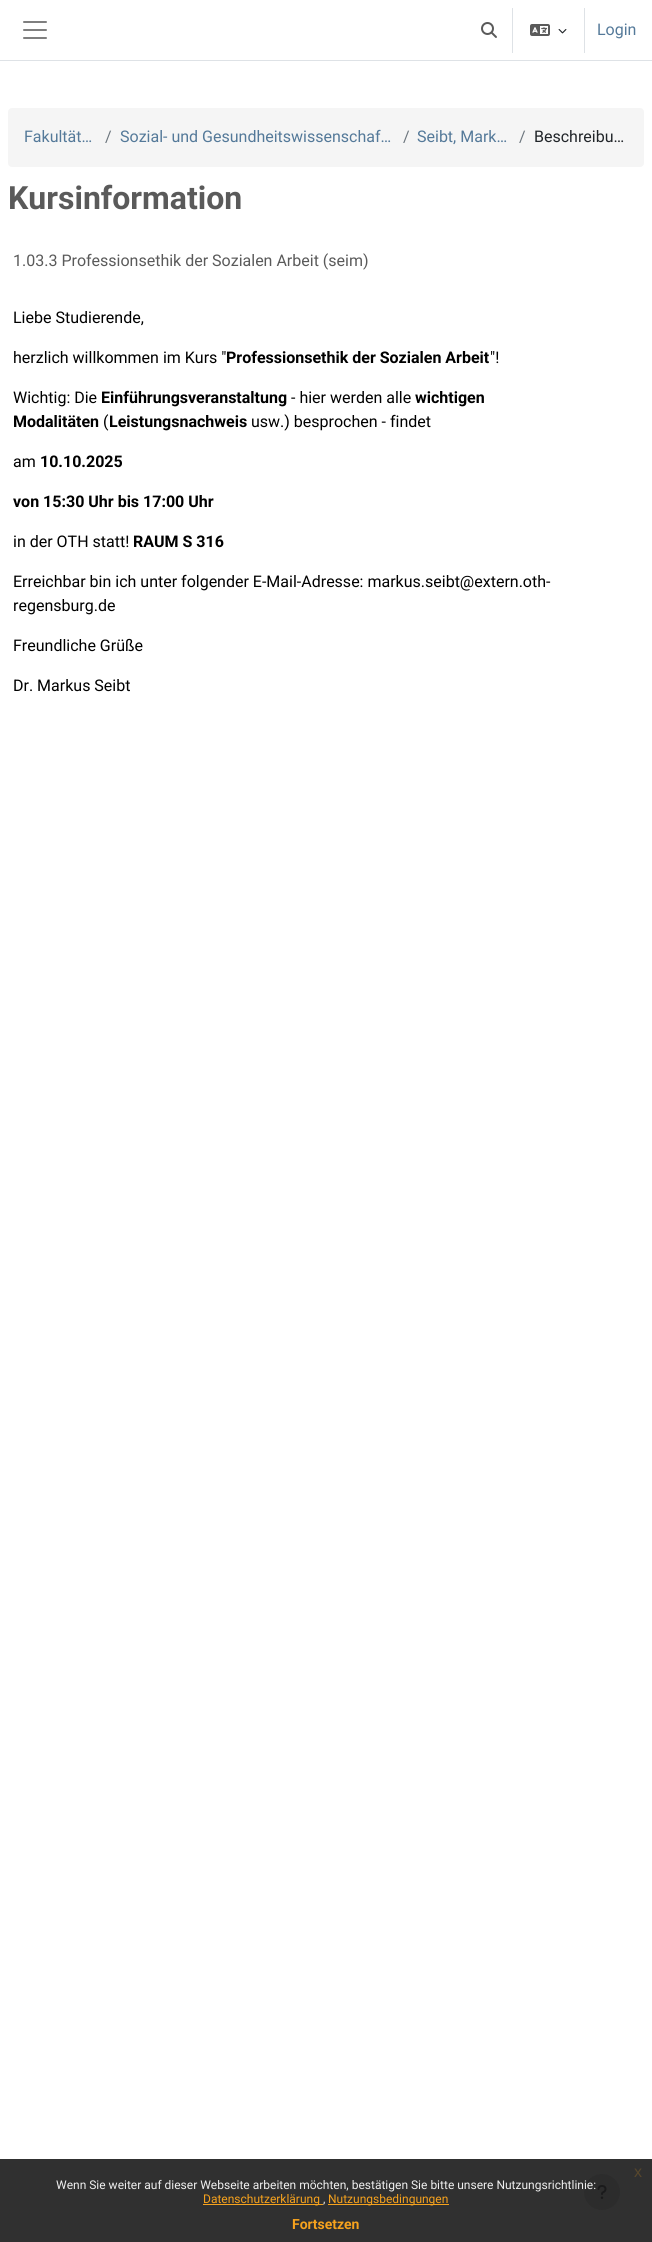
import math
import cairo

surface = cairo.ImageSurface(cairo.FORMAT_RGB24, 652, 2242)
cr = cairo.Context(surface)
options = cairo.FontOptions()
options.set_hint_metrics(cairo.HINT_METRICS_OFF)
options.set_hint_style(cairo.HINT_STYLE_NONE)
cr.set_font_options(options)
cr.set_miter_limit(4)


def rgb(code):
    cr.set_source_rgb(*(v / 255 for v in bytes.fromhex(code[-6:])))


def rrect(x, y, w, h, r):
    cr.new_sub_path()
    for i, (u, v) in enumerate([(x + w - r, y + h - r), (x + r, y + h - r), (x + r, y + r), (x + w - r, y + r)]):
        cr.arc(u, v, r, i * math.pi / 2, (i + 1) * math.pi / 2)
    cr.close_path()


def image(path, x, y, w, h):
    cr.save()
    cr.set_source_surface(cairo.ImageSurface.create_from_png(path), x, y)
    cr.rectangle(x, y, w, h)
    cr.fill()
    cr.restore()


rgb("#ffffff")
cr.paint()
rgb("#303030")
cr.rectangle(0, 2159, 652, 83)
cr.fill()
rgb("#dee2e6")
cr.rectangle(0, 60, 652, 1)
cr.fill()
image("img/1.png", 23, 21, 24, 18)
image("img/2.png", 481, 22, 16, 16)
cr.rectangle(512, 8, 1, 45)
cr.fill()
image("img/3.png", 530, 24, 20, 12)
image("img/4.png", 558, 29, 9, 5)
cr.rectangle(584, 8, 1, 45)
cr.fill()
rgb("#f5f5f5")
rrect(8, 108, 636, 59, 4)
cr.fill()
rgb("#2c2c2c")
cr.arc(602, 2192, 18, 0, 2 * math.pi)
cr.fill()
image("img/5.png", 597, 2185, 10, 14)
rgb("#f6a21d")
cr.rectangle(203, 2204, 120, 1)
cr.fill()
cr.rectangle(328, 2204, 121, 1)
cr.fill()
cr.select_font_face("Roboto")
cr.set_font_size(16)
rgb("#547999")
cr.move_to(597, 35)
cr.show_text("Login")
cr.move_to(24, 142)
cr.show_text("Fakultät…")
rgb("#6c757d")
cr.move_to(105, 142)
cr.show_text("/")
rgb("#547999")
cr.move_to(120, 142)
cr.show_text("Sozial- und Gesundheitswissenschaf…")
rgb("#6c757d")
cr.move_to(403, 142)
cr.show_text("/")
rgb("#547999")
cr.move_to(417, 142)
cr.show_text("Seibt, Mark…")
rgb("#6c757d")
cr.move_to(519, 142)
cr.show_text("/")
rgb("#212529")
cr.move_to(534, 142)
cr.show_text("Beschreibu…")
cr.select_font_face("Roboto", cairo.FONT_SLANT_NORMAL, cairo.FONT_WEIGHT_BOLD)
cr.set_font_size(32)
rgb("#5a5a5a")
cr.move_to(8, 209)
cr.show_text("Kursinformation")
cr.select_font_face("Roboto")
cr.set_font_size(16)
cr.move_to(13, 266)
cr.show_text("1.03.3 Professionsethik der Sozialen Arbeit (seim)")
rgb("#000000")
cr.move_to(13, 323)
cr.show_text("Liebe Studierende,")
cr.move_to(13, 363)
cr.show_text("herzlich willkommen im Kurs \"")
cr.select_font_face("Roboto", cairo.FONT_SLANT_NORMAL, cairo.FONT_WEIGHT_BOLD)
cr.move_to(226, 363)
cr.show_text("Professionsethik der Sozialen Arbeit")
cr.select_font_face("Roboto")
cr.move_to(490, 363)
cr.show_text("\"!")
cr.move_to(13, 403)
cr.show_text("Wichtig: Die")
cr.select_font_face("Roboto", cairo.FONT_SLANT_NORMAL, cairo.FONT_WEIGHT_BOLD)
cr.move_to(101, 403)
cr.show_text("Einführungsveranstaltung")
cr.select_font_face("Roboto")
cr.move_to(291, 403)
cr.show_text("- hier werden alle")
cr.select_font_face("Roboto", cairo.FONT_SLANT_NORMAL, cairo.FONT_WEIGHT_BOLD)
cr.move_to(415, 403)
cr.show_text("wichtigen")
cr.move_to(13, 427)
cr.show_text("Modalitäten")
cr.select_font_face("Roboto")
cr.move_to(103, 427)
cr.show_text("(")
cr.select_font_face("Roboto", cairo.FONT_SLANT_NORMAL, cairo.FONT_WEIGHT_BOLD)
cr.move_to(109, 427)
cr.show_text("Leistungsnachweis")
cr.select_font_face("Roboto")
cr.move_to(251, 427)
cr.show_text("usw.) besprochen - findet")
cr.move_to(13, 467)
cr.show_text("am")
cr.select_font_face("Roboto", cairo.FONT_SLANT_NORMAL, cairo.FONT_WEIGHT_BOLD)
cr.move_to(40, 467)
cr.show_text("10.10.2025")
cr.move_to(13, 507)
cr.show_text("von 15:30 Uhr bis 17:00 Uhr")
cr.select_font_face("Roboto")
cr.move_to(13, 547)
cr.show_text("in der OTH statt!")
cr.select_font_face("Roboto", cairo.FONT_SLANT_NORMAL, cairo.FONT_WEIGHT_BOLD)
cr.move_to(133, 547)
cr.show_text("RAUM S 316")
cr.select_font_face("Roboto")
for x, y, s in [
    (13, 587, "Erreichbar bin ich unter folgender E-Mail-Adresse: markus.seibt@extern.oth-"),
    (13, 611, "regensburg.de"),
    (13, 651, "Freundliche Grüße"),
    (13, 691, "Dr. Markus Seibt"),
]:
    cr.move_to(x, y)
    cr.show_text(s)
cr.select_font_face("Liberation Sans")
rgb("#58472c")
cr.move_to(634, 2177)
cr.show_text("x")
cr.select_font_face("Roboto")
cr.set_font_size(12)
rgb("#efefef")
cr.move_to(56, 2189)
cr.show_text("Wenn Sie weiter auf dieser Webseite arbeiten möchten, bestätigen Sie bitte unsere Nutzungsrichtlinie:")
rgb("#f6a21d")
cr.move_to(203, 2203)
cr.show_text("Datenschutzerklärung")
rgb("#efefef")
cr.move_to(323, 2203)
cr.show_text(",")
rgb("#f6a21d")
cr.move_to(328, 2203)
cr.show_text("Nutzungsbedingungen")
cr.select_font_face("Roboto", cairo.FONT_SLANT_NORMAL, cairo.FONT_WEIGHT_BOLD)
cr.set_font_size(14)
cr.move_to(292, 2229)
cr.show_text("Fortsetzen")
surface.write_to_png("page.png")
